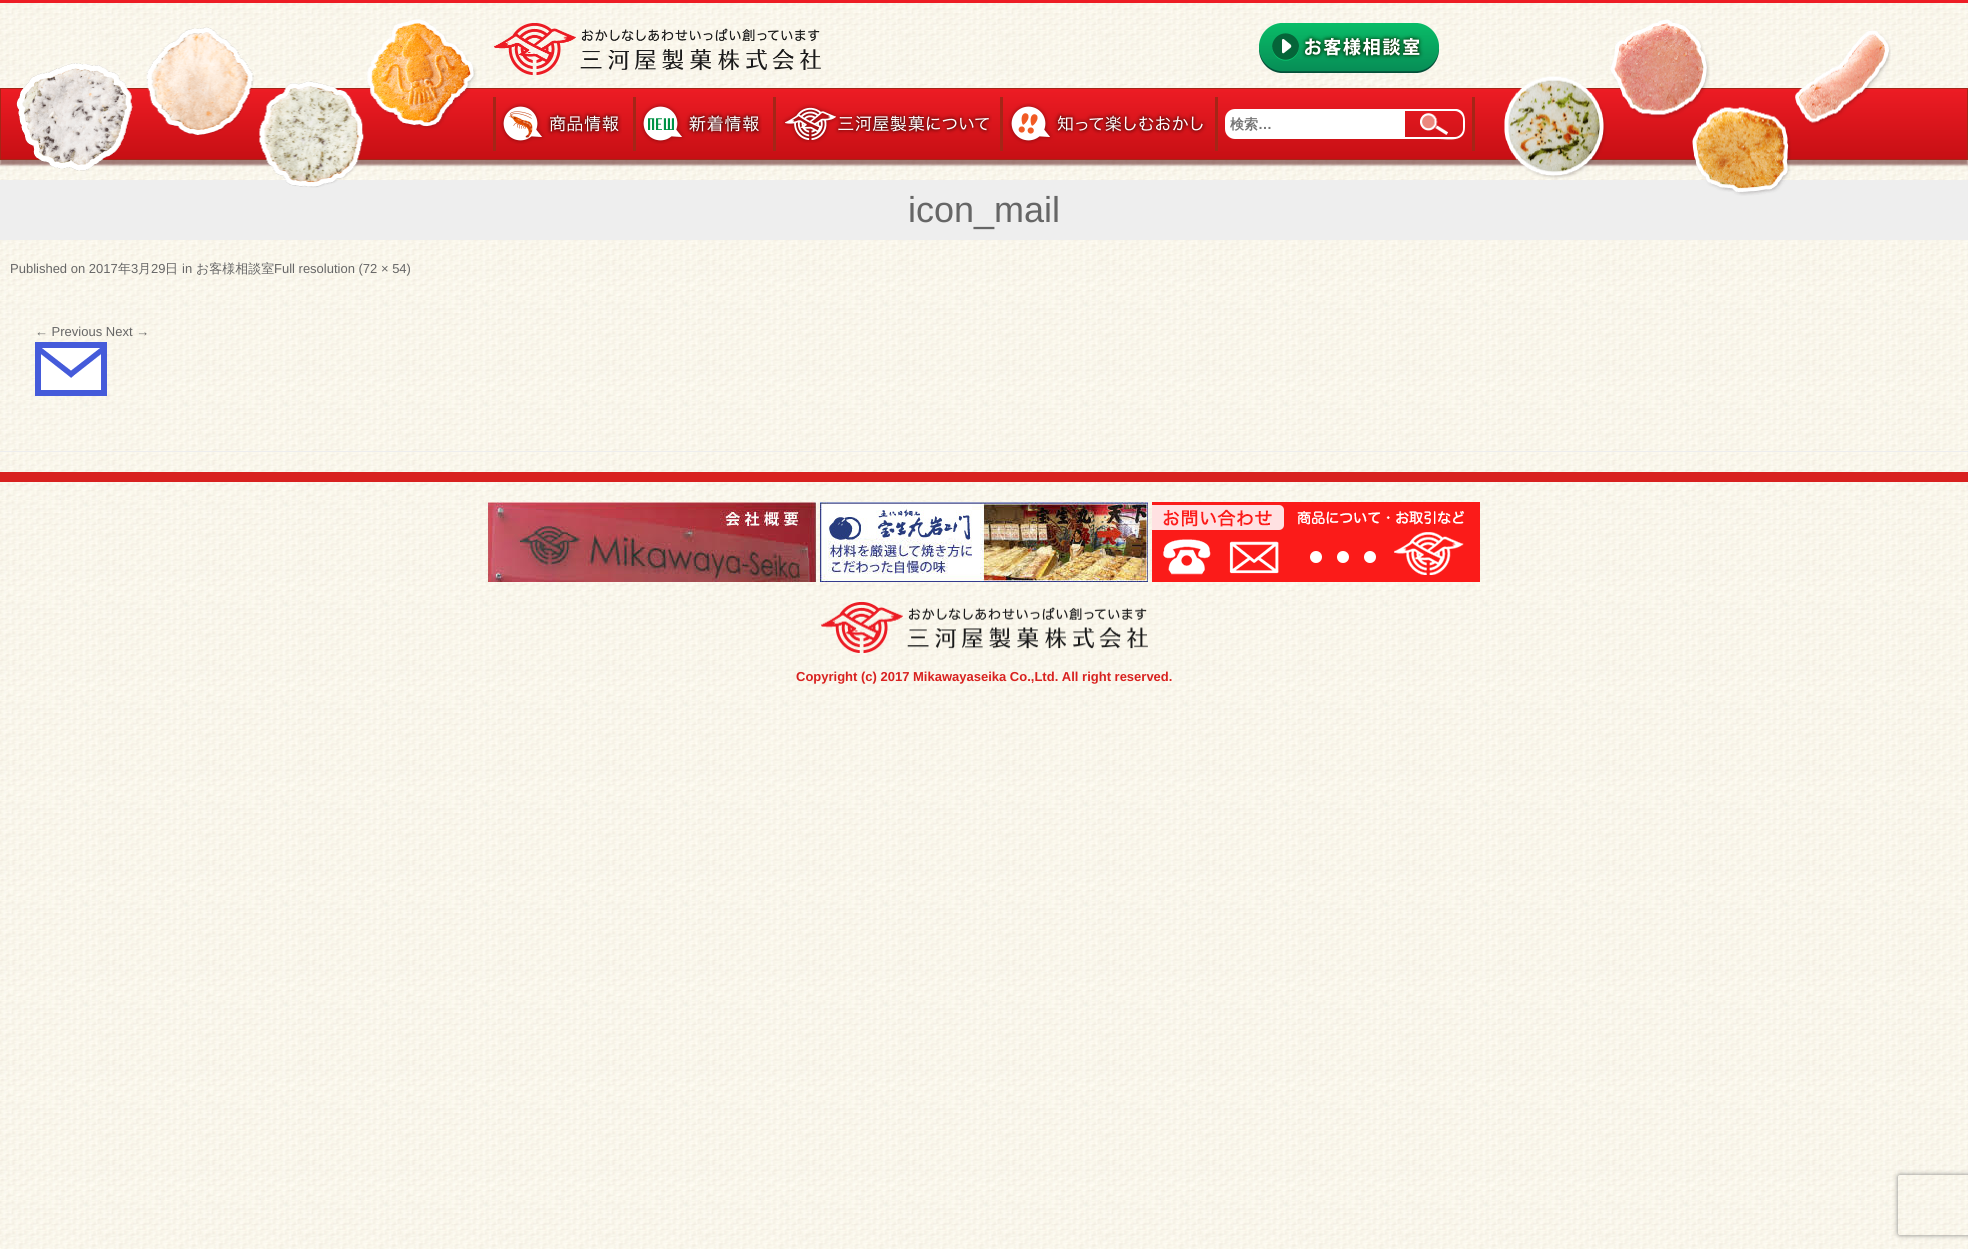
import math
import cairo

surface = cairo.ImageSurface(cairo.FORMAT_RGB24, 1968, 1249)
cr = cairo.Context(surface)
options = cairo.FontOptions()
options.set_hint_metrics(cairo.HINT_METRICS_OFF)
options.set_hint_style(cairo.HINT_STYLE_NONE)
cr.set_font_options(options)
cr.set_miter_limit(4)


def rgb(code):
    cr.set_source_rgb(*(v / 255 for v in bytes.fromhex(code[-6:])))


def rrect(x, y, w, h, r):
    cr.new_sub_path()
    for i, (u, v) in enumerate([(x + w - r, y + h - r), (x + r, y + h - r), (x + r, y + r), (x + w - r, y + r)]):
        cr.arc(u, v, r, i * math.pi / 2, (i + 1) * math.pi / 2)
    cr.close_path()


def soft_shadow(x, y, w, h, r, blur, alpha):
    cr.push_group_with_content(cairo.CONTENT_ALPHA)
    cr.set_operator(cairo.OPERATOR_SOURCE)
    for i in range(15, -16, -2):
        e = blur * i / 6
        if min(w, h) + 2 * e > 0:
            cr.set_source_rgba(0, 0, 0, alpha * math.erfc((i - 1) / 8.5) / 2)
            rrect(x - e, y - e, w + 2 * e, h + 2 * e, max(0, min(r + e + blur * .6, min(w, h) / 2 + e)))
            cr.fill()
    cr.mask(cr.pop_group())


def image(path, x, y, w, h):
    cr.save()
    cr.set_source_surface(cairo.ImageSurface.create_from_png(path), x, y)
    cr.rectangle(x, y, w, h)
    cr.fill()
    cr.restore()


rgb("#ffffff")
cr.paint()
image("img/1.png", 0, 3, 1968, 1246)
rgb("#ed1c24")
cr.rectangle(0, 0, 1968, 3)
cr.fill()
image("img/2.png", 494, 23, 327, 52)
image("img/3.png", 1259, 23, 180, 50)
rgb("#490202")
soft_shadow(0, 93, 1968, 72, 0, 1, 0.5)
gradient = cairo.LinearGradient(984, 89, 984, 159)
gradient.add_color_stop_rgba(0, 0.929, 0.11, 0.141, 1)
gradient.add_color_stop_rgba(1, 0.78, 0.059, 0.078, 1)
cr.set_source(gradient)
cr.rectangle(1, 89, 1966, 70)
cr.fill()
cr.rectangle(0.5, 88.5, 1967, 71)
rgb("#a42617")
cr.set_line_width(1)
cr.stroke()
rgb("#eeeeee")
cr.rectangle(0, 180, 1968, 60)
cr.fill()
image("img/4.png", 16, 19, 461, 169)
rgb("#a42617")
cr.rectangle(493, 97, 3, 54)
cr.fill()
image("img/5.png", 500, 103, 122, 41)
cr.rectangle(633, 97, 3, 54)
cr.fill()
image("img/6.png", 640, 103, 122, 41)
cr.rectangle(773, 97, 3, 54)
cr.fill()
image("img/7.png", 782, 104, 210, 39)
cr.rectangle(1000, 97, 3, 54)
cr.fill()
image("img/8.png", 1008, 103, 199, 41)
cr.rectangle(1215, 97, 3, 54)
cr.fill()
rgb("#ffffff")
cr.new_path()
cr.move_to(1235, 109)
cr.line_to(1405, 109)
cr.line_to(1405, 139)
cr.line_to(1235, 139)
cr.curve_to(1229.5, 139, 1225, 134.5, 1225, 129)
cr.line_to(1225, 119)
cr.curve_to(1225, 113.5, 1229.5, 109, 1235, 109)
cr.close_path()
cr.fill()
image("img/9.png", 1420, 113, 28, 22)
cr.set_fill_rule(cairo.FILL_RULE_EVEN_ODD)
cr.new_path()
cr.move_to(1405, 109)
cr.line_to(1457, 109)
cr.curve_to(1466, 111, 1465, 120, 1465, 127)
cr.curve_to(1465, 143, 1449, 139, 1438, 139)
cr.line_to(1405, 139)
cr.close_path()
cr.move_to(1405, 111)
cr.line_to(1455, 111)
cr.curve_to(1459, 111, 1463, 115, 1463, 119)
cr.line_to(1463, 129)
cr.curve_to(1463, 133, 1459, 137, 1455, 137)
cr.line_to(1405, 137)
cr.close_path()
cr.fill()
rgb("#a42617")
cr.rectangle(1472, 97, 3, 54)
cr.fill()
image("img/10.png", 1504, 19, 387, 177)
image("img/11.png", 35, 342, 72, 54)
rgb("#eeeeee")
cr.rectangle(0, 451, 1968, 1)
cr.fill()
rgb("#d8211f")
cr.rectangle(0, 472, 1968, 10)
cr.fill()
image("img/12.png", 488, 502, 328, 80)
image("img/13.png", 820, 502, 328, 80)
image("img/14.png", 1152, 502, 328, 80)
image("img/15.png", 821, 602, 327, 51)
cr.save()
cr.new_path()
cr.move_to(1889, 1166)
cr.line_to(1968, 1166)
cr.line_to(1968, 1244)
cr.line_to(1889, 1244)
cr.close_path()
cr.move_to(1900, 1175)
cr.line_to(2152, 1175)
cr.curve_to(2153, 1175, 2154, 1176, 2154, 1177)
cr.line_to(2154, 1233)
cr.curve_to(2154, 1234, 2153, 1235, 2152, 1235)
cr.line_to(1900, 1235)
cr.curve_to(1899, 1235, 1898, 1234, 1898, 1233)
cr.line_to(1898, 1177)
cr.curve_to(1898, 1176, 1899, 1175, 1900, 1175)
cr.close_path()
cr.clip()
rgb("#808080")
soft_shadow(1898, 1175, 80, 60, 2, 2.5, 1)
cr.restore()
cr.select_font_face("WenQuanYi Zen Hei", cairo.FONT_SLANT_NORMAL, cairo.FONT_WEIGHT_BOLD)
cr.set_font_size(14)
rgb("#757575")
cr.move_to(1230, 129)
cr.show_text("検索")
cr.select_font_face("Liberation Sans", cairo.FONT_SLANT_NORMAL, cairo.FONT_WEIGHT_BOLD)
cr.move_to(1258, 129)
cr.show_text("…")
cr.select_font_face("Liberation Sans")
cr.set_font_size(36)
rgb("#666666")
cr.move_to(908, 222)
cr.show_text("icon_mail")
cr.set_font_size(13)
cr.move_to(10, 273)
cr.show_text("Published on 2017")
cr.select_font_face("WenQuanYi Zen Hei Medium")
cr.move_to(118, 273)
cr.show_text("年")
cr.select_font_face("Liberation Sans")
cr.move_to(131, 273)
cr.show_text("3")
cr.select_font_face("WenQuanYi Zen Hei Medium")
cr.move_to(138, 273)
cr.show_text("月")
cr.select_font_face("Liberation Sans")
cr.move_to(151, 273)
cr.show_text("29")
cr.select_font_face("WenQuanYi Zen Hei Medium")
cr.move_to(165, 273)
cr.show_text("日")
cr.select_font_face("Liberation Sans")
cr.move_to(182, 273)
cr.show_text("in")
cr.select_font_face("WenQuanYi Zen Hei Medium")
cr.move_to(196, 273)
cr.show_text("お客様相談室")
cr.select_font_face("Liberation Sans")
cr.move_to(274, 273)
cr.show_text("Full resolution (72 × 54)")
cr.move_to(35, 336)
cr.show_text("← Previous Next →")
cr.select_font_face("Liberation Sans", cairo.FONT_SLANT_NORMAL, cairo.FONT_WEIGHT_BOLD)
rgb("#d8211f")
cr.move_to(796, 681)
cr.show_text("Copyright (c) 2017 Mikawayaseika Co.,Ltd. All right reserved.")
surface.write_to_png("page.png")
